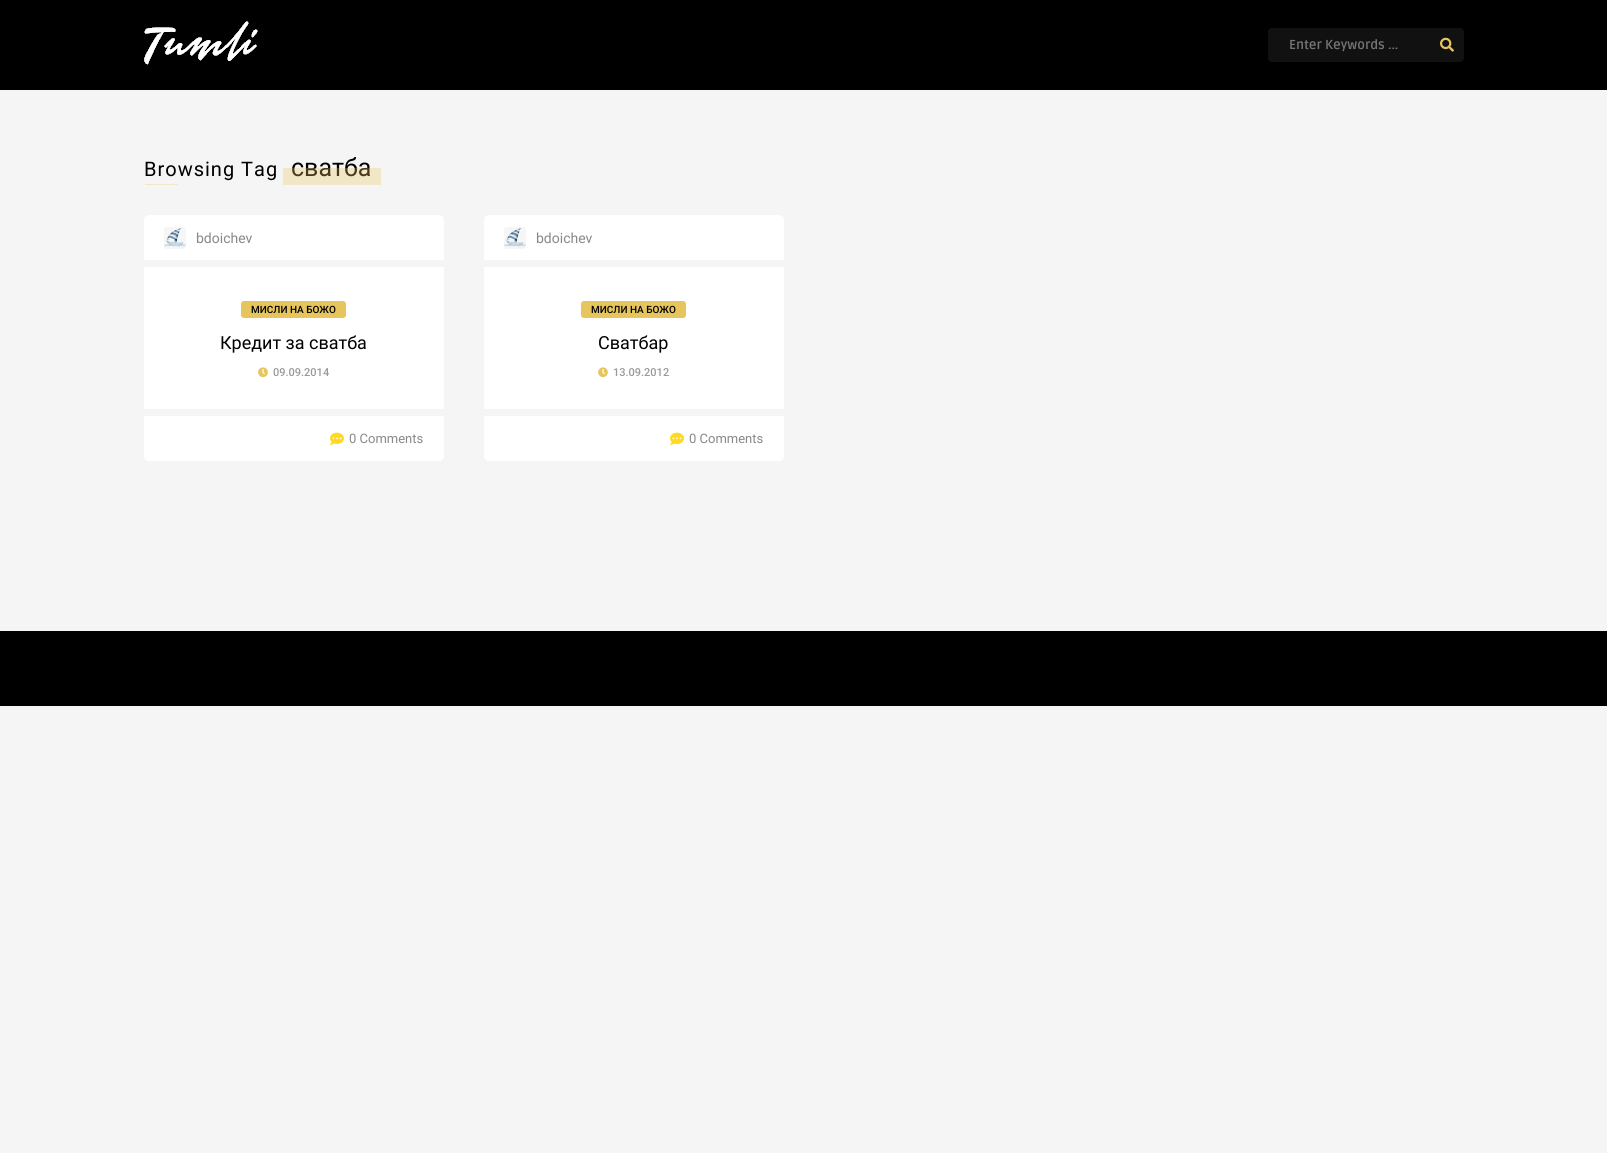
import math
import cairo

surface = cairo.ImageSurface(cairo.FORMAT_RGB24, 1607, 1153)
cr = cairo.Context(surface)
options = cairo.FontOptions()
options.set_hint_metrics(cairo.HINT_METRICS_OFF)
options.set_hint_style(cairo.HINT_STYLE_NONE)
cr.set_font_options(options)
cr.set_miter_limit(4)


def rgb(code):
    cr.set_source_rgb(*(v / 255 for v in bytes.fromhex(code[-6:])))


def tracked(x, y, s, letter, word):
    cr.move_to(x, y)
    for ch in s:
        cr.show_text(ch)
        cr.rel_move_to(letter + word * (ch == ' '), 0)


def rrect(x, y, w, h, r):
    cr.new_sub_path()
    for i, (u, v) in enumerate([(x + w - r, y + h - r), (x + r, y + h - r), (x + r, y + r), (x + w - r, y + r)]):
        cr.arc(u, v, r, i * math.pi / 2, (i + 1) * math.pi / 2)
    cr.close_path()


def image(path, x, y, w, h):
    cr.save()
    cr.set_source_surface(cairo.ImageSurface.create_from_png(path), x, y)
    cr.rectangle(x, y, w, h)
    cr.fill()
    cr.restore()


rgb("#f5f5f5")
cr.paint()
rgb("#000000")
cr.rectangle(0, 0, 1607, 90)
cr.fill()
image("img/1.png", 144, 21, 114, 44)
rgb("#111111")
cr.new_path()
cr.move_to(1272, 28.5)
cr.line_to(1429.5, 28.5)
cr.line_to(1429.5, 61.5)
cr.line_to(1272, 61.5)
cr.curve_to(1270, 61.5, 1268.5, 60, 1268.5, 58)
cr.line_to(1268.5, 32)
cr.curve_to(1268.5, 30, 1270, 28.5, 1272, 28.5)
cr.close_path()
cr.fill_preserve()
cr.set_line_width(1)
cr.stroke()
cr.new_path()
cr.move_to(1430, 28)
cr.line_to(1460, 28)
cr.curve_to(1462, 28, 1464, 30, 1464, 32)
cr.line_to(1464, 58)
cr.curve_to(1464, 60, 1462, 62, 1460, 62)
cr.line_to(1430, 62)
cr.close_path()
cr.fill()
image("img/2.png", 1440, 37, 14, 15)
rgb("#f1e7c7")
cr.rectangle(145, 184, 33, 1)
cr.fill()
rgb("#ffffff")
rrect(144, 215, 300, 246, 5)
cr.fill()
image("img/3.png", 164, 227, 22, 22)
rgb("#f5f5f5")
cr.rectangle(144, 260, 300, 7)
cr.fill()
rgb("#e6c55c")
rrect(241, 301, 105, 17, 3)
cr.fill()
image("img/4.png", 258, 367, 10, 11)
rgb("#f5f5f5")
cr.rectangle(144, 409, 300, 7)
cr.fill()
image("img/5.png", 330, 432, 14, 13)
rgb("#ffffff")
rrect(484, 215, 300, 246, 5)
cr.fill()
image("img/3.png", 504, 227, 22, 22)
rgb("#f5f5f5")
cr.rectangle(484, 260, 300, 7)
cr.fill()
rgb("#e6c55c")
rrect(581, 301, 105, 17, 3)
cr.fill()
image("img/4.png", 598, 367, 10, 11)
rgb("#f5f5f5")
cr.rectangle(484, 409, 300, 7)
cr.fill()
image("img/5.png", 670, 432, 14, 13)
rgb("#000000")
cr.rectangle(0, 631, 1607, 75)
cr.fill()
cr.select_font_face("Ruda", cairo.FONT_SLANT_NORMAL, cairo.FONT_WEIGHT_BOLD)
cr.set_font_size(13)
rgb("#757575")
cr.move_to(1289, 49)
cr.show_text("Enter Keywords ...")
cr.select_font_face("Roboto")
cr.set_font_size(20)
rgb("#000000")
tracked(144, 176, "Browsing Tag", 1, 0)
cr.set_font_size(25)
cr.move_to(291, 176)
cr.show_text("сватба")
cr.set_source_rgba(0.902, 0.773, 0.361, 0.3)
cr.rectangle(283, 168, 98, 17)
cr.fill()
cr.set_font_size(14)
rgb("#888888")
cr.move_to(196, 243)
cr.show_text("bdoichev")
cr.select_font_face("Roboto Medium")
cr.set_font_size(10)
rgb("#000000")
cr.move_to(251, 313)
cr.show_text("МИСЛИ НА БОЖО")
cr.select_font_face("Roboto")
cr.set_font_size(18)
cr.move_to(220, 349)
cr.show_text("Кредит за сватба")
cr.select_font_face("Roboto Medium")
cr.set_font_size(11)
rgb("#999999")
cr.move_to(273, 376)
cr.show_text("09.09.2014")
cr.select_font_face("Roboto")
cr.set_font_size(13)
rgb("#888888")
cr.move_to(349, 443)
cr.show_text("0 Comments")
cr.set_font_size(14)
cr.move_to(536, 243)
cr.show_text("bdoichev")
cr.select_font_face("Roboto Medium")
cr.set_font_size(10)
rgb("#000000")
cr.move_to(591, 313)
cr.show_text("МИСЛИ НА БОЖО")
cr.select_font_face("Roboto")
cr.set_font_size(18)
cr.move_to(598, 349)
cr.show_text("Сватбар")
cr.select_font_face("Roboto Medium")
cr.set_font_size(11)
rgb("#999999")
cr.move_to(613, 376)
cr.show_text("13.09.2012")
cr.select_font_face("Roboto")
cr.set_font_size(13)
rgb("#888888")
cr.move_to(689, 443)
cr.show_text("0 Comments")
surface.write_to_png("page.png")
